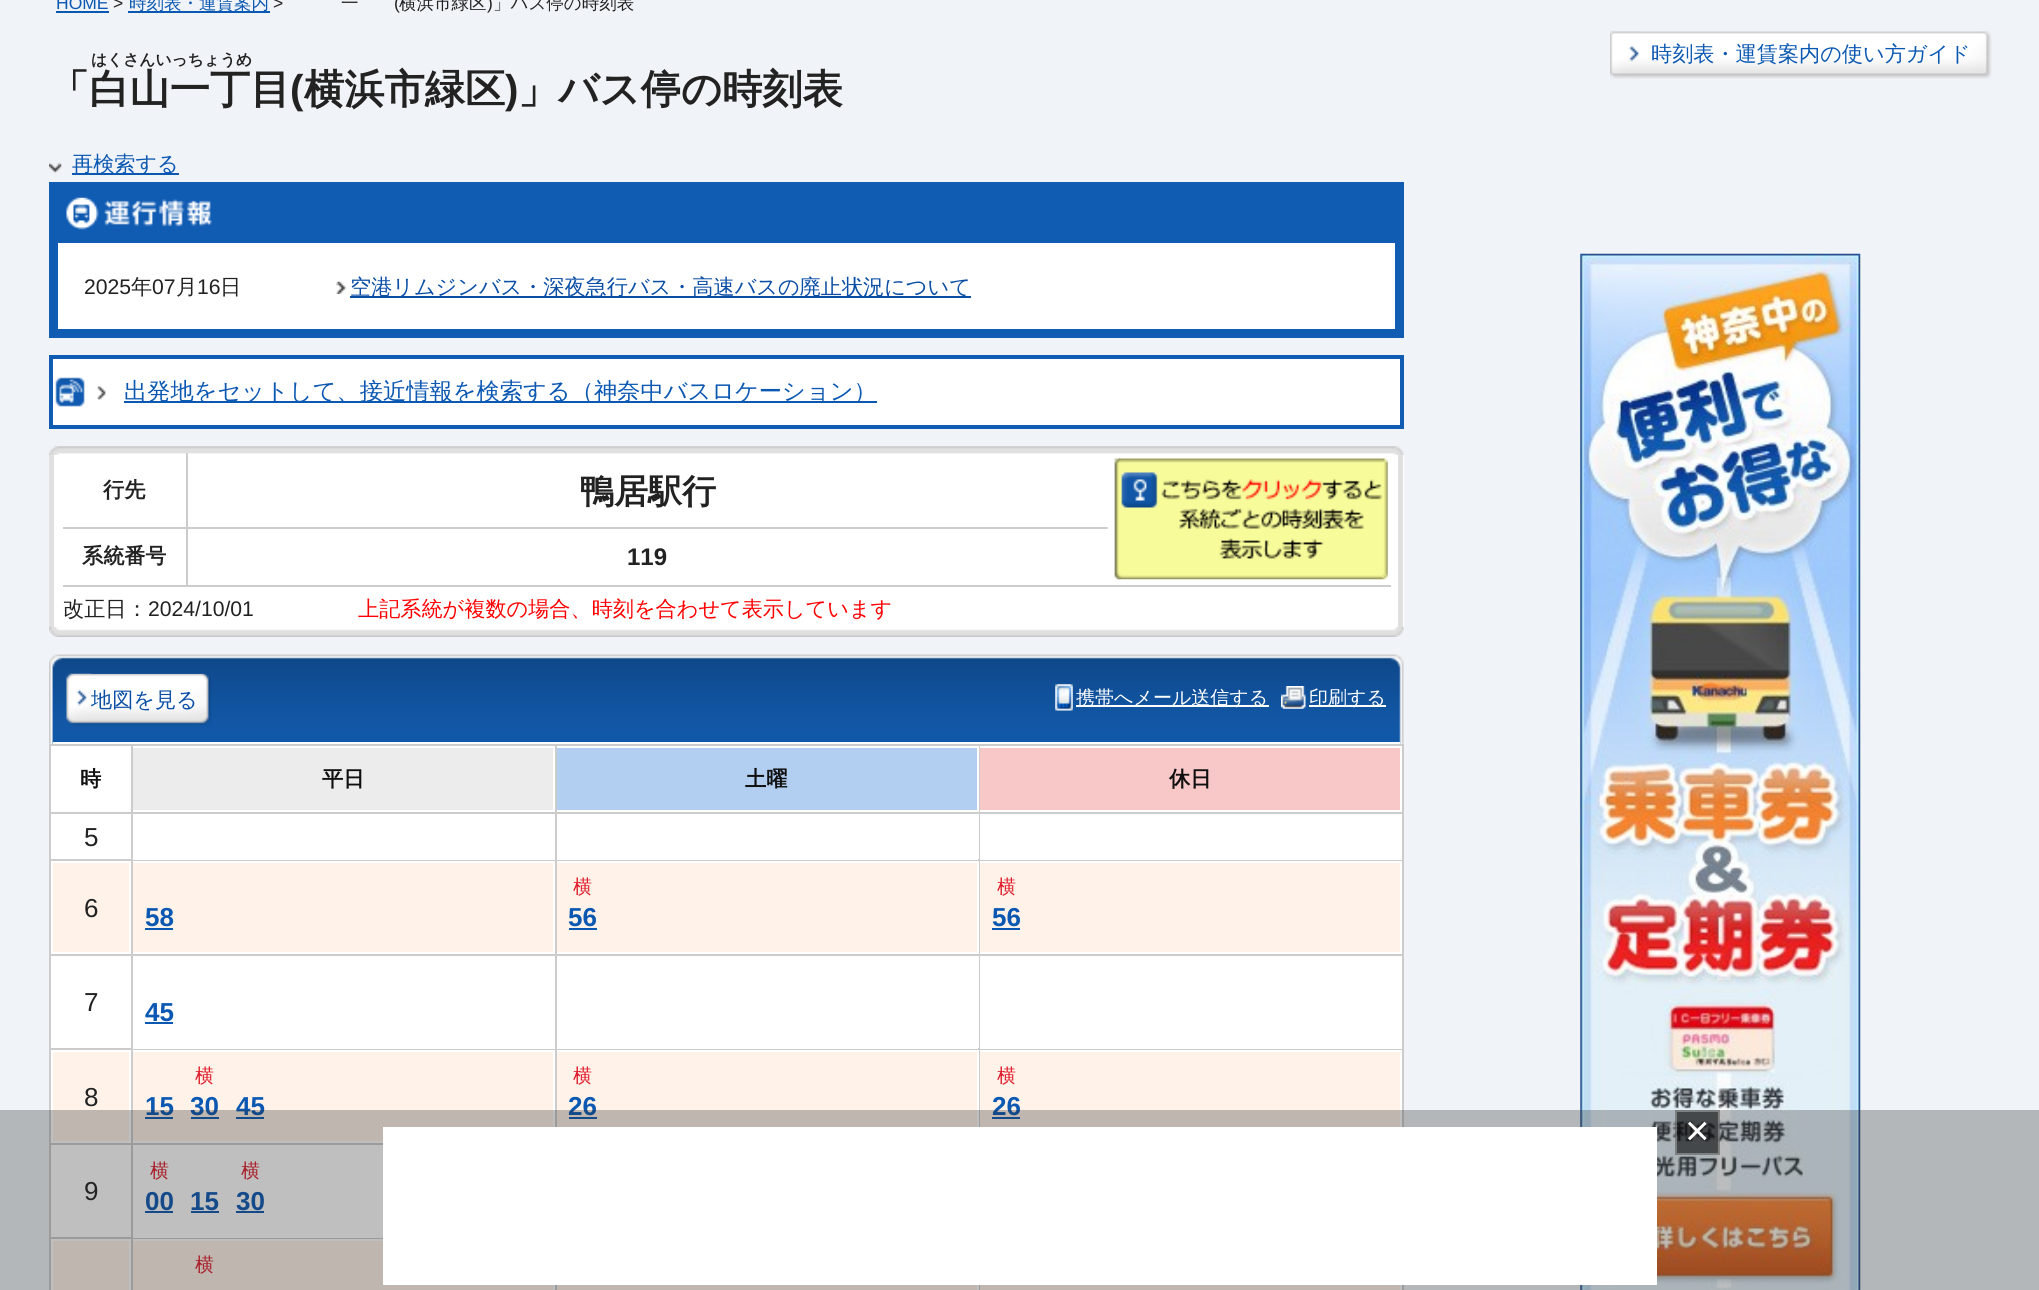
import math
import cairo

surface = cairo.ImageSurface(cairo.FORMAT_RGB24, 2039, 1290)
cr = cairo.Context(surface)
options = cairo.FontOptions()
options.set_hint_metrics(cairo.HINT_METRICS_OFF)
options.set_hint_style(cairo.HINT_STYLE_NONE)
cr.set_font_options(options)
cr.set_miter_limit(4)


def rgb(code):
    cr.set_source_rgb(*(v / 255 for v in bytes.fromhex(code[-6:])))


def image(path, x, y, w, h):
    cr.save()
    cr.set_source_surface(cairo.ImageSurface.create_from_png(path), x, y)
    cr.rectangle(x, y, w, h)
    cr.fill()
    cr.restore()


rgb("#f0f3f7")
cr.paint()
rgb("#0b58b2")
cr.rectangle(56, 11, 53, 2)
cr.fill()
cr.rectangle(128, 11, 142, 2)
cr.fill()
image("img/1.png", 1610, 31, 382, 48)
image("img/2.png", 1610, 31, 30, 48)
image("img/3.png", 49, 162, 13, 12)
cr.rectangle(72, 173, 107, 2)
cr.fill()
rgb("#ffffff")
cr.rectangle(58, 243, 1337, 86)
cr.fill()
cr.rectangle(53.5, 186.5, 1346, 147)
rgb("#115cb3")
cr.set_line_width(9)
cr.stroke()
cr.rectangle(58, 191, 1337, 52)
cr.fill()
image("img/4.png", 66, 197, 146, 33)
image("img/5.png", 336, 281, 11, 13)
rgb("#0a4ea5")
cr.rectangle(350, 296, 621, 2)
cr.fill()
rgb("#ffffff")
cr.rectangle(51, 357, 1351, 70)
cr.fill_preserve()
rgb("#115cb3")
cr.set_line_width(4)
cr.stroke()
image("img/6.png", 55, 377, 51, 30)
rgb("#0b58b2")
cr.rectangle(124, 401, 753, 2)
cr.fill()
image("img/7.png", 49, 627, 1355, 10)
image("img/8.png", 49, 446, 1355, 9)
for x, y, w, h, color in [
    (54, 455, 1350, 172, "#ffffff"),
    (1398, 455, 5, 172, "#e0e0e0"),
    (49, 455, 5, 172, "#e0e0e0"),
    (1383, 585, 8, 2, "#cccccc"),
    (186, 585, 1198, 2, "#cccccc"),
    (186, 527, 2, 59, "#cccccc"),
    (186, 527, 922, 2, "#cccccc"),
    (186, 453, 2, 76, "#cccccc"),
    (63, 527, 124, 2, "#cccccc"),
]:
    rgb(color)
    cr.rectangle(x, y, w, h)
    cr.fill()
image("img/9.png", 1107, 458, 281, 122)
cr.rectangle(63, 585, 124, 2)
cr.fill()
image("img/10.png", 49, 654, 1355, 90)
rgb("#ffffff")
cr.rectangle(53, 742, 1347, 2)
cr.fill()
image("img/11.png", 66, 673, 25, 53)
image("img/12.png", 91, 673, 121, 53)
image("img/13.png", 1055, 684, 18, 27)
cr.rectangle(1076, 705, 193, 2)
cr.fill()
image("img/14.png", 1281, 686, 25, 23)
for x, y, w, h, color in [
    (1309, 705, 77, 2, "#ffffff"),
    (49, 744, 1355, 546, "#cccccc"),
    (51, 746, 80, 66, "#ffffff"),
    (133, 748, 420, 62, "#ececec"),
    (133, 746, 422, 2, "#ffffff"),
    (553, 746, 2, 66, "#ffffff"),
    (133, 810, 422, 2, "#ffffff"),
    (557, 748, 420, 62, "#b2cff1"),
    (557, 746, 421, 2, "#ffffff"),
    (977, 746, 2, 66, "#ffffff"),
    (557, 810, 421, 2, "#ffffff"),
    (980, 748, 420, 62, "#f8c7c7"),
    (980, 746, 422, 2, "#ffffff"),
    (1400, 746, 2, 66, "#ffffff"),
    (980, 810, 422, 2, "#ffffff"),
    (51, 814, 80, 45, "#ffffff"),
    (133, 814, 422, 46, "#ffffff"),
    (557, 814, 420, 44, "#ffffff"),
    (977, 814, 2, 45, "#ffffff"),
    (557, 858, 421, 2, "#ffffff"),
    (980, 814, 422, 46, "#ffffff"),
]:
    rgb(color)
    cr.rectangle(x, y, w, h)
    cr.fill()
rgb("#fff2e8")
cr.rectangle(52, 862, 78, 91)
cr.fill_preserve()
rgb("#ffffff")
cr.set_line_width(2)
cr.stroke()
for x, y, w, h, color in [
    (133, 863, 420, 89, "#fff2e8"),
    (133, 861, 422, 2, "#ffffff"),
    (553, 861, 2, 93, "#ffffff"),
    (133, 952, 422, 2, "#ffffff"),
    (145, 928, 28, 2, "#0b58b2"),
    (557, 863, 420, 89, "#fff2e8"),
    (557, 861, 421, 2, "#ffffff"),
    (977, 861, 2, 93, "#ffffff"),
    (557, 952, 421, 2, "#ffffff"),
    (569, 928, 28, 2, "#0b58b2"),
    (980, 863, 420, 89, "#fff2e8"),
    (980, 861, 422, 2, "#ffffff"),
    (1400, 861, 2, 93, "#ffffff"),
    (980, 952, 422, 2, "#ffffff"),
    (992, 928, 28, 2, "#0b58b2"),
    (51, 956, 80, 92, "#ffffff"),
    (133, 956, 422, 93, "#ffffff"),
    (145, 1022, 28, 2, "#0b58b2"),
    (557, 956, 420, 91, "#ffffff"),
    (977, 956, 2, 92, "#ffffff"),
    (557, 1047, 421, 2, "#ffffff"),
    (980, 956, 422, 93, "#ffffff"),
]:
    rgb(color)
    cr.rectangle(x, y, w, h)
    cr.fill()
rgb("#fff2e8")
cr.rectangle(52, 1051, 78, 91)
cr.fill_preserve()
rgb("#ffffff")
cr.stroke()
for x, y, w, h, color in [
    (133, 1052, 420, 89, "#fff2e8"),
    (133, 1050, 422, 2, "#ffffff"),
    (553, 1050, 2, 77, "#ffffff"),
    (133, 1141, 250, 2, "#ffffff"),
    (145, 1117, 28, 2, "#0b58b2"),
    (191, 1117, 28, 2, "#0b58b2"),
    (236, 1117, 28, 2, "#0b58b2"),
    (557, 1052, 420, 75, "#fff2e8"),
    (557, 1050, 421, 2, "#ffffff"),
    (977, 1050, 2, 77, "#ffffff"),
    (569, 1117, 28, 2, "#0b58b2"),
    (980, 1052, 420, 75, "#fff2e8"),
    (980, 1050, 422, 2, "#ffffff"),
    (1400, 1050, 2, 77, "#ffffff"),
    (992, 1117, 28, 2, "#0b58b2"),
    (51, 1145, 80, 92, "#ffffff"),
    (133, 1145, 250, 93, "#ffffff"),
    (145, 1211, 28, 2, "#0b58b2"),
    (191, 1211, 28, 2, "#0b58b2"),
    (236, 1211, 28, 2, "#0b58b2"),
]:
    rgb(color)
    cr.rectangle(x, y, w, h)
    cr.fill()
rgb("#fff2e8")
cr.rectangle(52, 1240, 78, 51)
cr.fill_preserve()
rgb("#ffffff")
cr.stroke()
for x, y, w, h, color in [
    (133, 1241, 420, 49, "#fff2e8"),
    (133, 1239, 250, 2, "#ffffff"),
    (553, 1285, 2, 5, "#ffffff"),
    (557, 1285, 420, 5, "#fff2e8"),
    (977, 1285, 2, 5, "#ffffff"),
    (980, 1285, 420, 5, "#fff2e8"),
    (1400, 1285, 2, 5, "#ffffff"),
]:
    rgb(color)
    cr.rectangle(x, y, w, h)
    cr.fill()
image("img/15.png", 1580, 253, 281, 1037)
cr.select_font_face("Liberation Sans")
cr.set_font_size(17.5)
rgb("#0b58b2")
cr.move_to(56, 9)
cr.show_text("HOME")
rgb("#222222")
cr.move_to(113, 9)
cr.show_text(">")
cr.select_font_face("WenQuanYi Zen Hei Medium")
rgb("#0b58b2")
cr.move_to(129, 9)
cr.show_text("時刻表・運賃案内")
cr.select_font_face("Liberation Sans")
rgb("#222222")
cr.move_to(273, 9)
cr.show_text(">")
cr.select_font_face("WenQuanYi Zen Hei Medium")
cr.move_to(341, 9)
cr.show_text("一")
cr.select_font_face("Liberation Sans")
cr.move_to(394, 9)
cr.show_text("(")
cr.select_font_face("WenQuanYi Zen Hei Medium")
cr.move_to(399, 9)
cr.show_text("横浜市緑区")
cr.select_font_face("Liberation Sans")
cr.move_to(487, 9)
cr.show_text(")")
cr.select_font_face("WenQuanYi Zen Hei Medium")
cr.move_to(493, 9)
cr.show_text("」バス停の時刻表")
cr.select_font_face("WenQuanYi Zen Hei", cairo.FONT_SLANT_NORMAL, cairo.FONT_WEIGHT_BOLD)
cr.set_font_size(15.75)
cr.move_to(91, 65)
cr.show_text("はくさんいっちょうめ")
cr.select_font_face("Liberation Sans", cairo.FONT_SLANT_NORMAL, cairo.FONT_WEIGHT_BOLD)
cr.set_font_size(40.25)
cr.move_to(290, 103)
cr.show_text("(")
cr.select_font_face("WenQuanYi Zen Hei", cairo.FONT_SLANT_NORMAL, cairo.FONT_WEIGHT_BOLD)
cr.move_to(304, 103)
cr.show_text("横浜市緑区")
cr.select_font_face("Liberation Sans", cairo.FONT_SLANT_NORMAL, cairo.FONT_WEIGHT_BOLD)
cr.move_to(505, 103)
cr.show_text(")")
cr.select_font_face("WenQuanYi Zen Hei", cairo.FONT_SLANT_NORMAL, cairo.FONT_WEIGHT_BOLD)
cr.move_to(518, 103)
cr.show_text("」バス停の時刻表")
cr.move_to(49, 103)
cr.show_text("「白山一丁目")
cr.select_font_face("WenQuanYi Zen Hei Medium")
cr.set_font_size(21.15)
rgb("#0b58b2")
cr.move_to(1651, 61)
cr.show_text("時刻表・運賃案内の使い方ガイド")
cr.move_to(72, 171)
cr.show_text("再検索する")
cr.select_font_face("Liberation Sans")
rgb("#222222")
cr.move_to(84, 294)
cr.show_text("2025")
cr.select_font_face("WenQuanYi Zen Hei Medium")
cr.move_to(131, 294)
cr.show_text("年")
cr.select_font_face("Liberation Sans")
cr.move_to(152, 294)
cr.show_text("07")
cr.select_font_face("WenQuanYi Zen Hei Medium")
cr.move_to(176, 294)
cr.show_text("月")
cr.select_font_face("Liberation Sans")
cr.move_to(197, 294)
cr.show_text("16")
cr.select_font_face("WenQuanYi Zen Hei Medium")
cr.move_to(220, 294)
cr.show_text("日")
rgb("#0a4ea5")
cr.move_to(350, 294)
cr.show_text("空港リムジンバス・深夜急行バス・高速バスの廃止状況について")
cr.set_font_size(23.25)
rgb("#0b58b2")
cr.move_to(124, 399)
cr.show_text("出発地をセットして、接近情報を検索する（神奈中バスロケーション）")
cr.select_font_face("WenQuanYi Zen Hei", cairo.FONT_SLANT_NORMAL, cairo.FONT_WEIGHT_BOLD)
cr.set_font_size(21.15)
rgb("#222222")
cr.move_to(103, 497)
cr.show_text("行先")
cr.set_font_size(34)
cr.move_to(580, 503)
cr.show_text("鴨居駅行")
cr.set_font_size(21.15)
cr.move_to(82, 563)
cr.show_text("系統番号")
cr.select_font_face("Liberation Sans", cairo.FONT_SLANT_NORMAL, cairo.FONT_WEIGHT_BOLD)
cr.set_font_size(24)
cr.move_to(627, 565)
cr.show_text("119")
cr.select_font_face("WenQuanYi Zen Hei Medium")
cr.set_font_size(21.15)
cr.move_to(63, 616)
cr.show_text("改正日：")
cr.select_font_face("Liberation Sans")
cr.move_to(148, 616)
cr.show_text("2024/10/01")
cr.select_font_face("WenQuanYi Zen Hei Medium")
rgb("#ff0000")
cr.move_to(358, 616)
cr.show_text("上記系統が複数の場合、時刻を合わせて表示しています")
rgb("#0a4ea5")
cr.move_to(91, 707)
cr.show_text("地図を見る")
cr.set_font_size(19)
rgb("#ffffff")
cr.move_to(1076, 704)
cr.show_text("携帯へメール送信する")
cr.move_to(1309, 704)
cr.show_text("印刷する")
cr.select_font_face("WenQuanYi Zen Hei", cairo.FONT_SLANT_NORMAL, cairo.FONT_WEIGHT_BOLD)
cr.set_font_size(21.15)
rgb("#101010")
for x, y, s in [
    (80, 786, "時"),
    (322, 786, "平日"),
    (745, 786, "土曜"),
    (1169, 786, "休日"),
]:
    cr.move_to(x, y)
    cr.show_text(s)
cr.select_font_face("Liberation Sans")
cr.set_font_size(26)
rgb("#222222")
cr.move_to(84, 846)
cr.show_text("5")
cr.move_to(84, 917)
cr.show_text("6")
cr.select_font_face("Liberation Sans", cairo.FONT_SLANT_NORMAL, cairo.FONT_WEIGHT_BOLD)
rgb("#0b58b2")
cr.move_to(145, 926)
cr.show_text("58")
cr.select_font_face("WenQuanYi Zen Hei Medium")
cr.set_font_size(19)
rgb("#e01d2d")
cr.move_to(573, 893)
cr.show_text("横")
cr.select_font_face("Liberation Sans", cairo.FONT_SLANT_NORMAL, cairo.FONT_WEIGHT_BOLD)
cr.set_font_size(26)
rgb("#0b58b2")
cr.move_to(568, 926)
cr.show_text("56")
cr.select_font_face("WenQuanYi Zen Hei Medium")
cr.set_font_size(19)
rgb("#e01d2d")
cr.move_to(997, 893)
cr.show_text("横")
cr.select_font_face("Liberation Sans", cairo.FONT_SLANT_NORMAL, cairo.FONT_WEIGHT_BOLD)
cr.set_font_size(26)
rgb("#0b58b2")
cr.move_to(992, 926)
cr.show_text("56")
cr.select_font_face("Liberation Sans")
rgb("#222222")
cr.move_to(84, 1011)
cr.show_text("7")
cr.select_font_face("Liberation Sans", cairo.FONT_SLANT_NORMAL, cairo.FONT_WEIGHT_BOLD)
rgb("#0b58b2")
cr.move_to(145, 1021)
cr.show_text("45")
cr.select_font_face("Liberation Sans")
rgb("#222222")
cr.move_to(84, 1106)
cr.show_text("8")
cr.select_font_face("WenQuanYi Zen Hei Medium")
cr.set_font_size(19)
rgb("#e01d2d")
cr.move_to(195, 1082)
cr.show_text("横")
cr.select_font_face("Liberation Sans", cairo.FONT_SLANT_NORMAL, cairo.FONT_WEIGHT_BOLD)
cr.set_font_size(26)
rgb("#0b58b2")
for x, y, s in [
    (145, 1115, "15"),
    (190, 1115, "30"),
    (236, 1115, "45"),
]:
    cr.move_to(x, y)
    cr.show_text(s)
cr.select_font_face("WenQuanYi Zen Hei Medium")
cr.set_font_size(19)
rgb("#e01d2d")
cr.move_to(573, 1082)
cr.show_text("横")
cr.select_font_face("Liberation Sans", cairo.FONT_SLANT_NORMAL, cairo.FONT_WEIGHT_BOLD)
cr.set_font_size(26)
rgb("#0b58b2")
cr.move_to(568, 1115)
cr.show_text("26")
cr.select_font_face("WenQuanYi Zen Hei Medium")
cr.set_font_size(19)
rgb("#e01d2d")
cr.move_to(997, 1082)
cr.show_text("横")
cr.select_font_face("Liberation Sans", cairo.FONT_SLANT_NORMAL, cairo.FONT_WEIGHT_BOLD)
cr.set_font_size(26)
rgb("#0b58b2")
cr.move_to(992, 1115)
cr.show_text("26")
cr.select_font_face("Liberation Sans")
rgb("#222222")
cr.move_to(84, 1200)
cr.show_text("9")
cr.select_font_face("WenQuanYi Zen Hei Medium")
cr.set_font_size(19)
rgb("#e01d2d")
cr.move_to(150, 1177)
cr.show_text("横")
cr.move_to(241, 1177)
cr.show_text("横")
cr.select_font_face("Liberation Sans", cairo.FONT_SLANT_NORMAL, cairo.FONT_WEIGHT_BOLD)
cr.set_font_size(26)
rgb("#0b58b2")
for x, y, s in [
    (145, 1210, "00"),
    (190, 1210, "15"),
    (236, 1210, "30"),
]:
    cr.move_to(x, y)
    cr.show_text(s)
cr.select_font_face("WenQuanYi Zen Hei Medium")
cr.set_font_size(19)
rgb("#e01d2d")
cr.move_to(195, 1271)
cr.show_text("横")
cr.set_source_rgba(0.157, 0.157, 0.157, 0.3)
cr.rectangle(0, 1110, 2039, 180)
cr.fill()
rgb("#ffffff")
cr.rectangle(383, 1127, 1274, 158)
cr.fill()
cr.set_source_rgba(0, 0, 0, 0.6)
cr.rectangle(1675, 1110, 45, 45)
cr.fill()
cr.rectangle(1676, 1111, 43, 43)
cr.set_source_rgba(1, 1, 1, 0.3)
cr.stroke()
cr.select_font_face("Liberation Sans")
cr.set_font_size(42)
rgb("#ffffff")
cr.move_to(1685, 1145)
cr.show_text("×")
surface.write_to_png("page.png")
